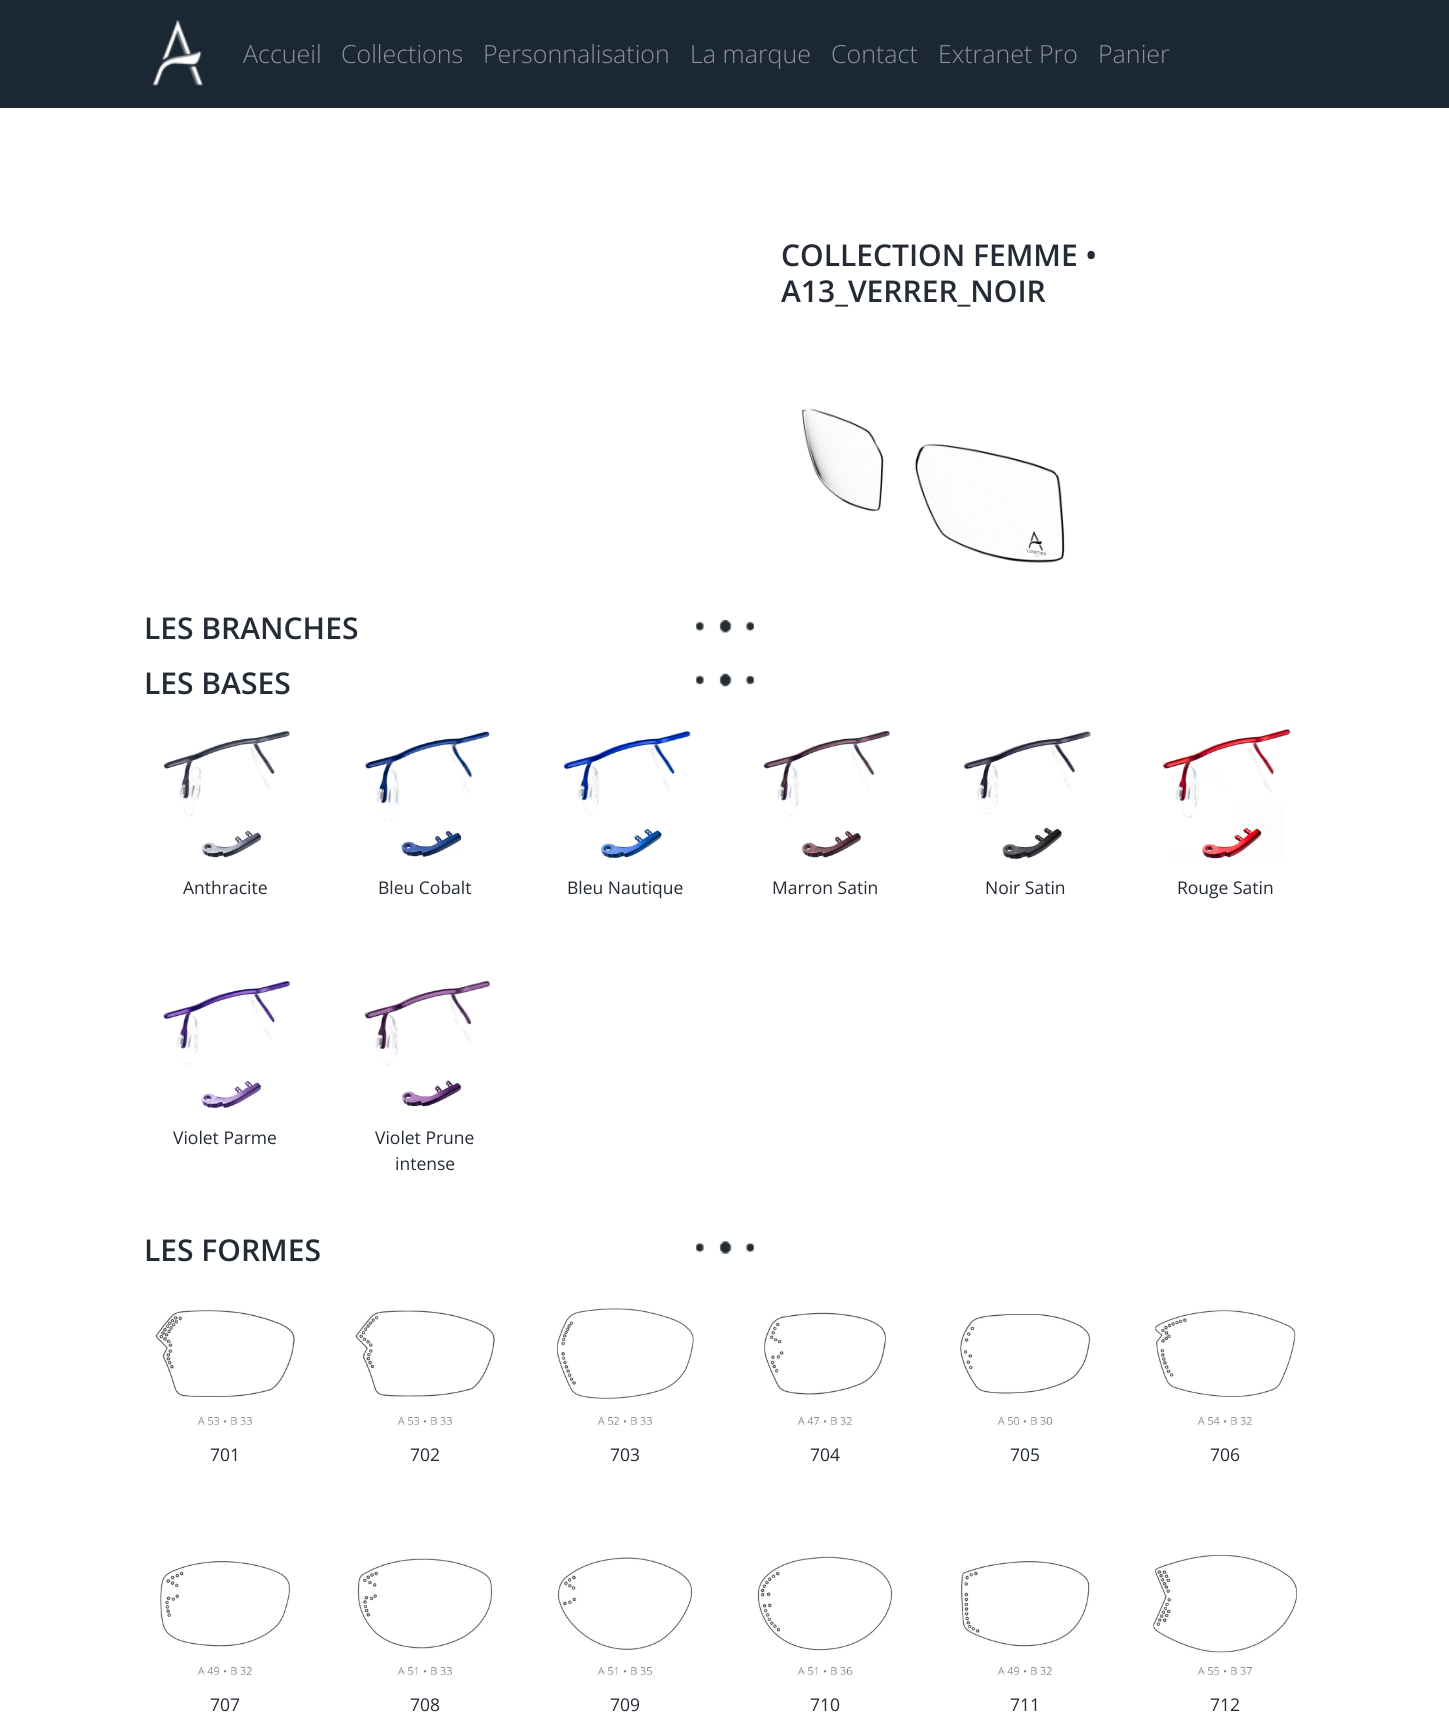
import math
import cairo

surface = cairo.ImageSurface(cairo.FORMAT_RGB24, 1449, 1736)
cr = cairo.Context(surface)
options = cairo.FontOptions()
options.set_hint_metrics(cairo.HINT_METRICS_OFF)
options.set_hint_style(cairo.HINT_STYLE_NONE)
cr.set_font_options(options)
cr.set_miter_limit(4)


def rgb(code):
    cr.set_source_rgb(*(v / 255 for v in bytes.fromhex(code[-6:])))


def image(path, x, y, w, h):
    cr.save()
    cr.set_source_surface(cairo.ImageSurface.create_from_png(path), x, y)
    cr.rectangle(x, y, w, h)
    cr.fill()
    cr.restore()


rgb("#ffffff")
cr.paint()
rgb("#1b2733")
cr.rectangle(0, 0, 1449, 108)
cr.fill()
image("img/1.png", 152, 20, 51, 66)
image("img/2.png", 801, 408, 264, 155)
image("img/3.png", 696, 620, 58, 13)
image("img/4.png", 696, 673, 58, 14)
image("img/5.png", 163, 730, 127, 128)
image("img/6.png", 365, 731, 125, 126)
image("img/7.png", 563, 731, 128, 128)
image("img/8.png", 763, 730, 127, 128)
image("img/9.png", 964, 731, 127, 128)
image("img/10.png", 1162, 729, 129, 130)
image("img/11.png", 163, 980, 128, 129)
image("img/12.png", 364, 980, 127, 127)
image("img/13.png", 696, 1241, 58, 13)
image("img/14.png", 155, 1310, 140, 115)
image("img/15.png", 355, 1310, 140, 115)
image("img/16.png", 556, 1308, 138, 117)
image("img/17.png", 764, 1312, 122, 113)
image("img/18.png", 960, 1314, 130, 111)
image("img/19.png", 1155, 1310, 141, 115)
image("img/20.png", 160, 1561, 130, 114)
image("img/21.png", 357, 1558, 136, 117)
image("img/22.png", 557, 1557, 136, 118)
image("img/23.png", 757, 1556, 136, 119)
image("img/24.png", 961, 1561, 129, 114)
image("img/25.png", 1153, 1554, 144, 121)
cr.select_font_face("Open Sans Light")
cr.set_font_size(25)
rgb("#8d9399")
for x, y, s in [
    (243, 63, "Accueil"),
    (341, 63, "Collections"),
    (483, 63, "Personnalisation"),
    (690, 63, "La marque"),
    (831, 63, "Contact"),
    (938, 63, "Extranet Pro"),
    (1098, 63, "Panier"),
]:
    cr.move_to(x, y)
    cr.show_text(s)
cr.select_font_face("Open Sans SemiBold")
cr.set_font_size(30)
rgb("#242b35")
for x, y, s in [
    (781, 266, "COLLECTION FEMME •"),
    (781, 302, "A13_VERRER_NOIR"),
    (144, 639, "LES BRANCHES"),
    (144, 694, "LES BASES"),
]:
    cr.move_to(x, y)
    cr.show_text(s)
cr.select_font_face("Open Sans")
cr.set_font_size(17.5)
for x, y, s in [
    (183, 894, "Anthracite"),
    (378, 894, "Bleu Cobalt"),
    (567, 894, "Bleu Nautique"),
    (772, 894, "Marron Satin"),
    (985, 894, "Noir Satin"),
    (1177, 894, "Rouge Satin"),
    (173, 1144, "Violet Parme"),
    (375, 1144, "Violet Prune"),
    (395, 1170, "intense"),
]:
    cr.move_to(x, y)
    cr.show_text(s)
cr.select_font_face("Open Sans SemiBold")
cr.set_font_size(30)
cr.move_to(144, 1261)
cr.show_text("LES FORMES")
cr.select_font_face("Open Sans")
cr.set_font_size(17.5)
for x, y, s in [
    (210, 1461, "701"),
    (410, 1461, "702"),
    (610, 1461, "703"),
    (810, 1461, "704"),
    (1010, 1461, "705"),
    (1210, 1461, "706"),
    (210, 1711, "707"),
    (410, 1711, "708"),
    (610, 1711, "709"),
    (810, 1711, "710"),
    (1010, 1711, "711"),
    (1210, 1711, "712"),
]:
    cr.move_to(x, y)
    cr.show_text(s)
surface.write_to_png("page.png")
